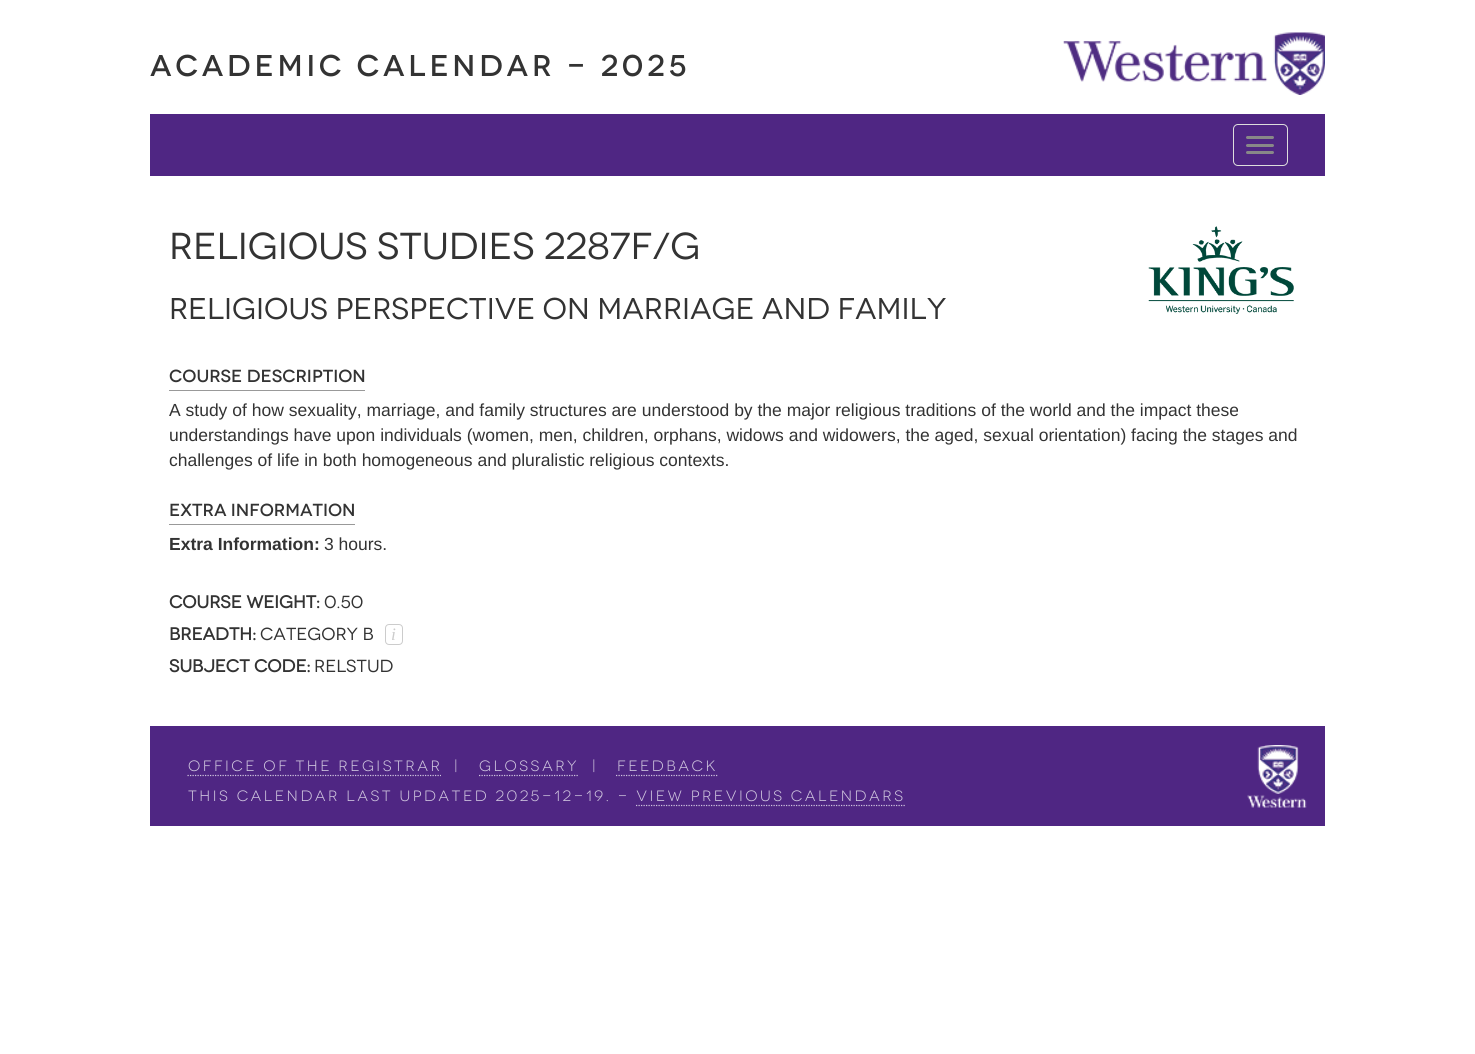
import math
import cairo

surface = cairo.ImageSurface(cairo.FORMAT_RGB24, 1475, 1054)
cr = cairo.Context(surface)
options = cairo.FontOptions()
options.set_hint_metrics(cairo.HINT_METRICS_OFF)
options.set_hint_style(cairo.HINT_STYLE_NONE)
cr.set_font_options(options)
cr.set_miter_limit(4)


def rgb(code):
    cr.set_source_rgb(*(v / 255 for v in bytes.fromhex(code[-6:])))


def tracked(x, y, s, letter, word):
    cr.move_to(x, y)
    for ch in s:
        cr.show_text(ch)
        cr.rel_move_to(letter + word * (ch == ' '), 0)


def rrect(x, y, w, h, r):
    cr.new_sub_path()
    for i, (u, v) in enumerate([(x + w - r, y + h - r), (x + r, y + h - r), (x + r, y + r), (x + w - r, y + r)]):
        cr.arc(u, v, r, i * math.pi / 2, (i + 1) * math.pi / 2)
    cr.close_path()


def image(path, x, y, w, h):
    cr.save()
    cr.set_source_surface(cairo.ImageSurface.create_from_png(path), x, y)
    cr.rectangle(x, y, w, h)
    cr.fill()
    cr.restore()


rgb("#ffffff")
cr.paint()
image("img/1.png", 1063, 32, 262, 63)
rgb("#4f2683")
cr.rectangle(150, 114, 1175, 62)
cr.fill()
rrect(1233.5, 124.5, 54, 41, 4.5)
rgb("#dddddd")
cr.set_line_width(1)
cr.stroke()
rgb("#888888")
rrect(1246, 136, 28, 3, 1.5)
cr.fill()
rrect(1246, 144, 28, 3, 1.5)
cr.fill()
rrect(1246, 151, 28, 3, 1.5)
cr.fill()
image("img/2.png", 1148, 226, 146, 88)
rgb("#999999")
cr.rectangle(169, 390, 196, 1)
cr.fill()
cr.rectangle(169, 524, 186, 1)
cr.fill()
rrect(385.5, 624.5, 17, 20, 3.5)
rgb("#cccccc")
cr.stroke()
rgb("#4f2683")
cr.rectangle(150, 726, 1175, 100)
cr.fill()
cr.new_path()
cr.move_to(187.5, 775.5)
cr.line_to(441, 775.5)
rgb("#cfc5de")
cr.set_line_width(1.2)
cr.set_dash([1.25, 1.25])
cr.stroke()
cr.new_path()
cr.move_to(479, 775.5)
cr.line_to(579, 775.5)
cr.stroke()
cr.new_path()
cr.move_to(616, 775.5)
cr.line_to(717.5, 775.5)
cr.stroke()
cr.new_path()
cr.move_to(636, 805.5)
cr.line_to(905, 805.5)
cr.stroke()
image("img/3.png", 1247, 745, 60, 63)
cr.select_font_face("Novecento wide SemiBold")
cr.set_font_size(30)
rgb("#333333")
tracked(150, 76, "Academic Calendar - 2025", 3.75, 0)
cr.select_font_face("Novecento wide")
cr.set_font_size(37.5)
cr.move_to(169, 259)
cr.show_text("Religious Studies 2287F/G")
cr.set_font_size(30)
cr.move_to(169, 319)
cr.show_text("RELIGIOUS PERSPECTIVE ON MARRIAGE AND FAMILY")
cr.select_font_face("Novecento wide SemiBold")
cr.set_font_size(17.5)
cr.move_to(169, 382)
cr.show_text("Course Description")
cr.select_font_face("Liberation Sans")
for x, y, s in [
    (169, 416, "A study of how sexuality, marriage, and family structures are understood by the major religious traditions of the world and the impact these"),
    (169, 441, "understandings have upon individuals (women, men, children, orphans, widows and widowers, the aged, sexual orientation) facing the stages and"),
    (169, 466, "challenges of life in both homogeneous and pluralistic religious contexts."),
]:
    cr.move_to(x, y)
    cr.show_text(s)
cr.select_font_face("Novecento wide SemiBold")
cr.move_to(169, 516)
cr.show_text("Extra Information")
cr.select_font_face("Liberation Sans", cairo.FONT_SLANT_NORMAL, cairo.FONT_WEIGHT_BOLD)
cr.move_to(169, 550)
cr.show_text("Extra Information:")
cr.select_font_face("Liberation Sans")
cr.move_to(324, 550)
cr.show_text("3 hours.")
cr.select_font_face("Novecento wide", cairo.FONT_SLANT_NORMAL, cairo.FONT_WEIGHT_BOLD)
cr.move_to(169, 608)
cr.show_text("Course Weight:")
cr.select_font_face("Novecento wide")
cr.move_to(324, 608)
cr.show_text("0.50")
cr.select_font_face("Novecento wide", cairo.FONT_SLANT_NORMAL, cairo.FONT_WEIGHT_BOLD)
cr.move_to(169, 640)
cr.show_text("Breadth:")
cr.select_font_face("Novecento wide")
cr.move_to(260, 640)
cr.show_text("CATEGORY B")
cr.select_font_face("Liberation Serif", cairo.FONT_SLANT_ITALIC)
rgb("#cccccc")
cr.move_to(391, 640)
cr.show_text("i")
cr.select_font_face("Novecento wide", cairo.FONT_SLANT_NORMAL, cairo.FONT_WEIGHT_BOLD)
rgb("#333333")
cr.move_to(169, 672)
cr.show_text("Subject Code:")
cr.select_font_face("Novecento wide")
cr.move_to(314, 672)
cr.show_text("RELSTUD")
cr.select_font_face("Novecento wide Light")
cr.set_font_size(15)
rgb("#cfc5de")
for x, y, s in [
    (188, 771, "Office of the Registrar"),
    (454, 771, "|"),
    (479, 771, "Glossary"),
    (592, 771, "|"),
    (617, 771, "Feedback"),
    (188, 801, "This Calendar last updated 2025-12-19. - view Previous Calendars"),
]:
    tracked(x, y, s, 2.5, 0)
surface.write_to_png("page.png")
